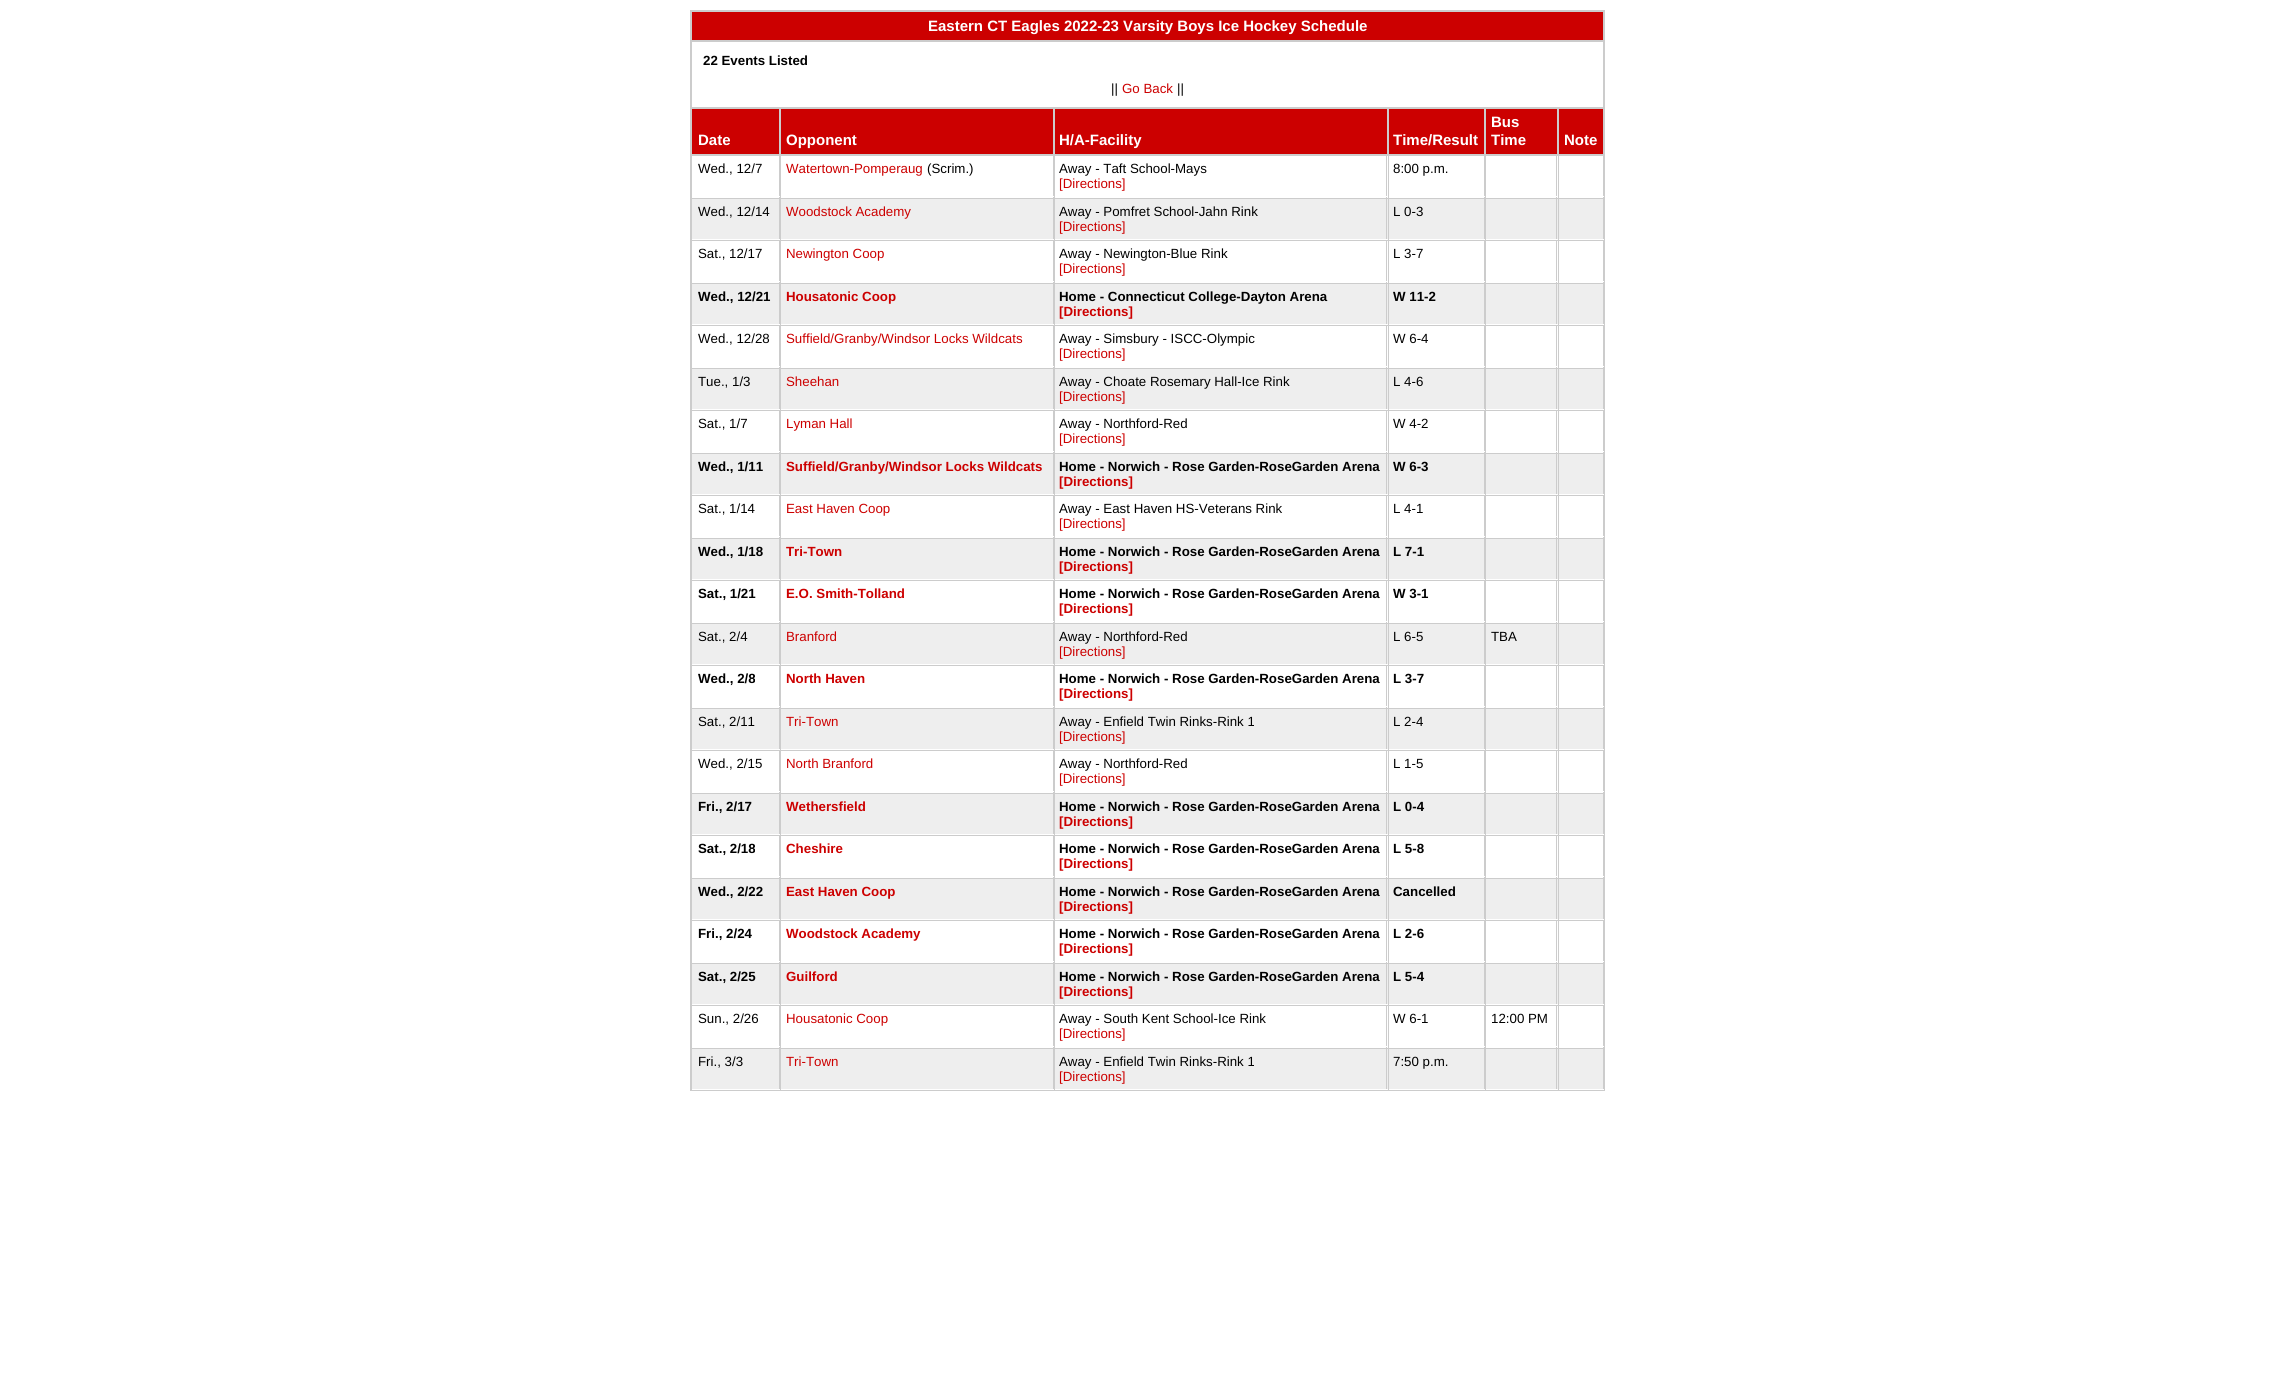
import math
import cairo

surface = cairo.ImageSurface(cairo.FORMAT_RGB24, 2295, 1374)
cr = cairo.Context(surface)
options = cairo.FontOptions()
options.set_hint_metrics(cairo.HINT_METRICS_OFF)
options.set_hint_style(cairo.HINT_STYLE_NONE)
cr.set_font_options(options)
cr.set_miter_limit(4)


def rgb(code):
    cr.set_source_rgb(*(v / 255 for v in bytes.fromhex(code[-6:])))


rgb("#ffffff")
cr.paint()
for x, y, w, h, color in [
    (690, 10, 915, 1081, "#cccccc"),
    (692, 12, 911, 28, "#cc0000"),
    (692, 42, 911, 65, "#ffffff"),
    (692, 109, 87, 45, "#cc0000"),
    (781, 109, 272, 45, "#cc0000"),
    (1055, 109, 332, 45, "#cc0000"),
    (1389, 109, 95, 45, "#cc0000"),
    (1486, 109, 71, 45, "#cc0000"),
    (1559, 109, 44, 45, "#cc0000"),
    (692, 156, 911, 42, "#ffffff"),
    (779, 155, 2, 43, "#cccccc"),
    (691, 196, 89, 1, "#ffffff"),
    (691, 196, 1, 2, "#cccccc"),
    (1053, 155, 2, 43, "#cccccc"),
    (1053, 196, 1, 1, "#ffffff"),
    (1386, 155, 1, 43, "#cccccc"),
    (1386, 196, 2, 1, "#ffffff"),
    (1484, 155, 2, 43, "#cccccc"),
    (1484, 196, 1, 1, "#ffffff"),
    (1388, 155, 1, 43, "#cccccc"),
    (1556, 155, 1, 43, "#cccccc"),
    (1556, 196, 2, 1, "#ffffff"),
    (1603, 196, 1, 1, "#ffffff"),
    (1558, 155, 1, 43, "#cccccc"),
    (692, 199, 911, 40, "#eeeeee"),
    (1556, 198, 1, 42, "#cccccc"),
    (1485, 239, 119, 1, "#ffffff"),
    (1485, 198, 1, 42, "#cccccc"),
    (779, 198, 1, 42, "#cccccc"),
    (691, 239, 89, 1, "#ffffff"),
    (691, 239, 1, 1, "#cccccc"),
    (1053, 198, 1, 42, "#cccccc"),
    (780, 239, 274, 1, "#ffffff"),
    (780, 198, 1, 42, "#cccccc"),
    (1386, 198, 1, 42, "#cccccc"),
    (1054, 239, 334, 1, "#ffffff"),
    (1054, 198, 1, 42, "#cccccc"),
    (1484, 198, 1, 42, "#cccccc"),
    (1388, 239, 97, 1, "#ffffff"),
    (1388, 198, 1, 42, "#cccccc"),
    (1558, 198, 1, 42, "#cccccc"),
    (692, 241, 911, 42, "#ffffff"),
    (779, 240, 2, 43, "#cccccc"),
    (691, 281, 89, 1, "#ffffff"),
    (691, 281, 1, 2, "#cccccc"),
    (1053, 240, 2, 43, "#cccccc"),
    (1053, 281, 1, 1, "#ffffff"),
    (1386, 240, 1, 43, "#cccccc"),
    (1386, 281, 2, 1, "#ffffff"),
    (1484, 240, 2, 43, "#cccccc"),
    (1484, 281, 1, 1, "#ffffff"),
    (1388, 240, 1, 43, "#cccccc"),
    (1556, 240, 1, 43, "#cccccc"),
    (1556, 281, 2, 1, "#ffffff"),
    (1603, 281, 1, 1, "#ffffff"),
    (1558, 240, 1, 43, "#cccccc"),
    (692, 284, 911, 40, "#eeeeee"),
    (1556, 283, 1, 42, "#cccccc"),
    (1485, 324, 119, 1, "#ffffff"),
    (1485, 283, 1, 42, "#cccccc"),
    (779, 283, 1, 42, "#cccccc"),
    (691, 324, 89, 1, "#ffffff"),
    (691, 324, 1, 1, "#cccccc"),
    (1053, 283, 1, 42, "#cccccc"),
    (780, 324, 274, 1, "#ffffff"),
    (780, 283, 1, 42, "#cccccc"),
    (1386, 283, 1, 42, "#cccccc"),
    (1054, 324, 334, 1, "#ffffff"),
    (1054, 283, 1, 42, "#cccccc"),
    (1484, 283, 1, 42, "#cccccc"),
    (1388, 324, 97, 1, "#ffffff"),
    (1388, 283, 1, 42, "#cccccc"),
    (1558, 283, 1, 42, "#cccccc"),
    (692, 326, 911, 42, "#ffffff"),
    (779, 325, 2, 43, "#cccccc"),
    (691, 366, 89, 1, "#ffffff"),
    (691, 366, 1, 2, "#cccccc"),
    (1053, 325, 2, 43, "#cccccc"),
    (1053, 366, 1, 1, "#ffffff"),
    (1386, 325, 1, 43, "#cccccc"),
    (1386, 366, 2, 1, "#ffffff"),
    (1484, 325, 2, 43, "#cccccc"),
    (1484, 366, 1, 1, "#ffffff"),
    (1388, 325, 1, 43, "#cccccc"),
    (1556, 325, 1, 43, "#cccccc"),
    (1556, 366, 2, 1, "#ffffff"),
    (1603, 366, 1, 1, "#ffffff"),
    (1558, 325, 1, 43, "#cccccc"),
    (692, 369, 911, 40, "#eeeeee"),
    (1556, 368, 1, 42, "#cccccc"),
    (1485, 409, 119, 1, "#ffffff"),
    (1485, 368, 1, 42, "#cccccc"),
    (779, 368, 1, 42, "#cccccc"),
    (691, 409, 89, 1, "#ffffff"),
    (691, 409, 1, 1, "#cccccc"),
    (1053, 368, 1, 42, "#cccccc"),
    (780, 409, 274, 1, "#ffffff"),
    (780, 368, 1, 42, "#cccccc"),
    (1386, 368, 1, 42, "#cccccc"),
    (1054, 409, 334, 1, "#ffffff"),
    (1054, 368, 1, 42, "#cccccc"),
    (1484, 368, 1, 42, "#cccccc"),
    (1388, 409, 97, 1, "#ffffff"),
    (1388, 368, 1, 42, "#cccccc"),
    (1558, 368, 1, 42, "#cccccc"),
    (692, 411, 911, 42, "#ffffff"),
    (779, 410, 2, 43, "#cccccc"),
    (691, 451, 89, 1, "#ffffff"),
    (691, 451, 1, 2, "#cccccc"),
    (1053, 410, 2, 43, "#cccccc"),
    (1053, 451, 1, 1, "#ffffff"),
    (1386, 410, 1, 43, "#cccccc"),
    (1386, 451, 2, 1, "#ffffff"),
    (1484, 410, 2, 43, "#cccccc"),
    (1484, 451, 1, 1, "#ffffff"),
    (1388, 410, 1, 43, "#cccccc"),
    (1556, 410, 1, 43, "#cccccc"),
    (1556, 451, 2, 1, "#ffffff"),
    (1603, 451, 1, 1, "#ffffff"),
    (1558, 410, 1, 43, "#cccccc"),
    (692, 454, 911, 40, "#eeeeee"),
    (1556, 453, 1, 42, "#cccccc"),
    (1485, 494, 119, 1, "#ffffff"),
    (1485, 453, 1, 42, "#cccccc"),
    (779, 453, 1, 42, "#cccccc"),
    (691, 494, 89, 1, "#ffffff"),
    (691, 494, 1, 1, "#cccccc"),
    (1053, 453, 1, 42, "#cccccc"),
    (780, 494, 274, 1, "#ffffff"),
    (780, 453, 1, 42, "#cccccc"),
    (1386, 453, 1, 42, "#cccccc"),
    (1054, 494, 334, 1, "#ffffff"),
    (1054, 453, 1, 42, "#cccccc"),
    (1484, 453, 1, 42, "#cccccc"),
    (1388, 494, 97, 1, "#ffffff"),
    (1388, 453, 1, 42, "#cccccc"),
    (1558, 453, 1, 42, "#cccccc"),
    (692, 496, 911, 42, "#ffffff"),
    (779, 495, 2, 43, "#cccccc"),
    (691, 536, 89, 1, "#ffffff"),
    (691, 536, 1, 2, "#cccccc"),
    (1053, 495, 2, 43, "#cccccc"),
    (1053, 536, 1, 1, "#ffffff"),
    (1386, 495, 1, 43, "#cccccc"),
    (1386, 536, 2, 1, "#ffffff"),
    (1484, 495, 2, 43, "#cccccc"),
    (1484, 536, 1, 1, "#ffffff"),
    (1388, 495, 1, 43, "#cccccc"),
    (1556, 495, 1, 43, "#cccccc"),
    (1556, 536, 2, 1, "#ffffff"),
    (1603, 536, 1, 1, "#ffffff"),
    (1558, 495, 1, 43, "#cccccc"),
    (692, 539, 911, 40, "#eeeeee"),
    (1556, 538, 1, 42, "#cccccc"),
    (1485, 579, 119, 1, "#ffffff"),
    (1485, 538, 1, 42, "#cccccc"),
    (779, 538, 1, 42, "#cccccc"),
    (691, 579, 89, 1, "#ffffff"),
    (691, 579, 1, 1, "#cccccc"),
    (1053, 538, 1, 42, "#cccccc"),
    (780, 579, 274, 1, "#ffffff"),
    (780, 538, 1, 42, "#cccccc"),
    (1386, 538, 1, 42, "#cccccc"),
    (1054, 579, 334, 1, "#ffffff"),
    (1054, 538, 1, 42, "#cccccc"),
    (1484, 538, 1, 42, "#cccccc"),
    (1388, 579, 97, 1, "#ffffff"),
    (1388, 538, 1, 42, "#cccccc"),
    (1558, 538, 1, 42, "#cccccc"),
    (692, 581, 911, 42, "#ffffff"),
    (779, 580, 2, 43, "#cccccc"),
    (691, 621, 89, 1, "#ffffff"),
    (691, 621, 1, 2, "#cccccc"),
    (1053, 580, 2, 43, "#cccccc"),
    (1053, 621, 1, 1, "#ffffff"),
    (1386, 580, 1, 43, "#cccccc"),
    (1386, 621, 2, 1, "#ffffff"),
    (1484, 580, 2, 43, "#cccccc"),
    (1484, 621, 1, 1, "#ffffff"),
    (1388, 580, 1, 43, "#cccccc"),
    (1556, 580, 1, 43, "#cccccc"),
    (1556, 621, 2, 1, "#ffffff"),
    (1603, 621, 1, 1, "#ffffff"),
    (1558, 580, 1, 43, "#cccccc"),
    (692, 624, 911, 40, "#eeeeee"),
    (779, 623, 1, 42, "#cccccc"),
    (691, 664, 89, 1, "#ffffff"),
    (691, 664, 1, 1, "#cccccc"),
    (1053, 623, 1, 42, "#cccccc"),
    (780, 664, 274, 1, "#ffffff"),
    (780, 623, 1, 42, "#cccccc"),
    (1386, 623, 1, 42, "#cccccc"),
    (1054, 664, 334, 1, "#ffffff"),
    (1054, 623, 1, 42, "#cccccc"),
    (1484, 623, 1, 42, "#cccccc"),
    (1388, 664, 97, 1, "#ffffff"),
    (1388, 623, 1, 42, "#cccccc"),
    (1556, 623, 1, 42, "#cccccc"),
    (1485, 664, 119, 1, "#ffffff"),
    (1485, 623, 1, 42, "#cccccc"),
    (1558, 623, 1, 42, "#cccccc"),
    (692, 666, 911, 42, "#ffffff"),
    (779, 665, 2, 43, "#cccccc"),
    (691, 706, 89, 1, "#ffffff"),
    (691, 706, 1, 2, "#cccccc"),
    (1053, 665, 2, 43, "#cccccc"),
    (1053, 706, 1, 1, "#ffffff"),
    (1386, 665, 1, 43, "#cccccc"),
    (1386, 706, 2, 1, "#ffffff"),
    (1484, 665, 2, 43, "#cccccc"),
    (1484, 706, 1, 1, "#ffffff"),
    (1388, 665, 1, 43, "#cccccc"),
    (1556, 665, 1, 43, "#cccccc"),
    (1556, 706, 2, 1, "#ffffff"),
    (1603, 706, 1, 1, "#ffffff"),
    (1558, 665, 1, 43, "#cccccc"),
    (692, 709, 911, 40, "#eeeeee"),
    (1556, 708, 1, 42, "#cccccc"),
    (1485, 749, 119, 1, "#ffffff"),
    (1485, 708, 1, 42, "#cccccc"),
    (779, 708, 1, 42, "#cccccc"),
    (691, 749, 89, 1, "#ffffff"),
    (691, 749, 1, 1, "#cccccc"),
    (1053, 708, 1, 42, "#cccccc"),
    (780, 749, 274, 1, "#ffffff"),
    (780, 708, 1, 42, "#cccccc"),
    (1386, 708, 1, 42, "#cccccc"),
    (1054, 749, 334, 1, "#ffffff"),
    (1054, 708, 1, 42, "#cccccc"),
    (1484, 708, 1, 42, "#cccccc"),
    (1388, 749, 97, 1, "#ffffff"),
    (1388, 708, 1, 42, "#cccccc"),
    (1558, 708, 1, 42, "#cccccc"),
    (692, 751, 911, 42, "#ffffff"),
    (779, 750, 2, 43, "#cccccc"),
    (691, 791, 89, 1, "#ffffff"),
    (691, 791, 1, 2, "#cccccc"),
    (1053, 750, 2, 43, "#cccccc"),
    (1053, 791, 1, 1, "#ffffff"),
    (1386, 750, 1, 43, "#cccccc"),
    (1386, 791, 2, 1, "#ffffff"),
    (1484, 750, 2, 43, "#cccccc"),
    (1484, 791, 1, 1, "#ffffff"),
    (1388, 750, 1, 43, "#cccccc"),
    (1556, 750, 1, 43, "#cccccc"),
    (1556, 791, 2, 1, "#ffffff"),
    (1603, 791, 1, 1, "#ffffff"),
    (1558, 750, 1, 43, "#cccccc"),
    (692, 794, 911, 40, "#eeeeee"),
    (1556, 793, 1, 42, "#cccccc"),
    (1485, 834, 119, 1, "#ffffff"),
    (1485, 793, 1, 42, "#cccccc"),
    (779, 793, 1, 42, "#cccccc"),
    (691, 834, 89, 1, "#ffffff"),
    (691, 834, 1, 1, "#cccccc"),
    (1053, 793, 1, 42, "#cccccc"),
    (780, 834, 274, 1, "#ffffff"),
    (780, 793, 1, 42, "#cccccc"),
    (1386, 793, 1, 42, "#cccccc"),
    (1054, 834, 334, 1, "#ffffff"),
    (1054, 793, 1, 42, "#cccccc"),
    (1484, 793, 1, 42, "#cccccc"),
    (1388, 834, 97, 1, "#ffffff"),
    (1388, 793, 1, 42, "#cccccc"),
    (1558, 793, 1, 42, "#cccccc"),
    (692, 836, 911, 42, "#ffffff"),
    (779, 835, 2, 43, "#cccccc"),
    (691, 876, 89, 1, "#ffffff"),
    (691, 876, 1, 2, "#cccccc"),
    (1053, 835, 2, 43, "#cccccc"),
    (1053, 876, 1, 1, "#ffffff"),
    (1386, 835, 1, 43, "#cccccc"),
    (1386, 876, 2, 1, "#ffffff"),
    (1484, 835, 2, 43, "#cccccc"),
    (1484, 876, 1, 1, "#ffffff"),
    (1388, 835, 1, 43, "#cccccc"),
    (1556, 835, 1, 43, "#cccccc"),
    (1556, 876, 2, 1, "#ffffff"),
    (1603, 876, 1, 1, "#ffffff"),
    (1558, 835, 1, 43, "#cccccc"),
    (692, 879, 911, 40, "#eeeeee"),
    (1556, 878, 1, 42, "#cccccc"),
    (1485, 919, 119, 1, "#ffffff"),
    (1485, 878, 1, 42, "#cccccc"),
    (779, 878, 1, 42, "#cccccc"),
    (691, 919, 89, 1, "#ffffff"),
    (691, 919, 1, 1, "#cccccc"),
    (1053, 878, 1, 42, "#cccccc"),
    (780, 919, 274, 1, "#ffffff"),
    (780, 878, 1, 42, "#cccccc"),
    (1386, 878, 1, 42, "#cccccc"),
    (1054, 919, 334, 1, "#ffffff"),
    (1054, 878, 1, 42, "#cccccc"),
    (1484, 878, 1, 42, "#cccccc"),
    (1388, 919, 97, 1, "#ffffff"),
    (1388, 878, 1, 42, "#cccccc"),
    (1558, 878, 1, 42, "#cccccc"),
    (692, 921, 911, 42, "#ffffff"),
    (779, 920, 2, 43, "#cccccc"),
    (691, 961, 89, 1, "#ffffff"),
    (691, 961, 1, 2, "#cccccc"),
    (1053, 920, 2, 43, "#cccccc"),
    (1053, 961, 1, 1, "#ffffff"),
    (1386, 920, 1, 43, "#cccccc"),
    (1386, 961, 2, 1, "#ffffff"),
    (1484, 920, 2, 43, "#cccccc"),
    (1484, 961, 1, 1, "#ffffff"),
    (1388, 920, 1, 43, "#cccccc"),
    (1556, 920, 1, 43, "#cccccc"),
    (1556, 961, 2, 1, "#ffffff"),
    (1603, 961, 1, 1, "#ffffff"),
    (1558, 920, 1, 43, "#cccccc"),
    (692, 964, 911, 40, "#eeeeee"),
    (1556, 963, 1, 42, "#cccccc"),
    (1485, 1004, 119, 1, "#ffffff"),
    (1485, 963, 1, 42, "#cccccc"),
    (779, 963, 1, 42, "#cccccc"),
    (691, 1004, 89, 1, "#ffffff"),
    (691, 1004, 1, 1, "#cccccc"),
    (1053, 963, 1, 42, "#cccccc"),
    (780, 1004, 274, 1, "#ffffff"),
    (780, 963, 1, 42, "#cccccc"),
    (1386, 963, 1, 42, "#cccccc"),
    (1054, 1004, 334, 1, "#ffffff"),
    (1054, 963, 1, 42, "#cccccc"),
    (1484, 963, 1, 42, "#cccccc"),
    (1388, 1004, 97, 1, "#ffffff"),
    (1388, 963, 1, 42, "#cccccc"),
    (1558, 963, 1, 42, "#cccccc"),
    (692, 1006, 911, 42, "#ffffff"),
    (779, 1005, 2, 43, "#cccccc"),
    (691, 1046, 89, 1, "#ffffff"),
    (691, 1046, 1, 2, "#cccccc"),
    (1053, 1005, 2, 43, "#cccccc"),
    (1053, 1046, 1, 1, "#ffffff"),
    (1386, 1005, 1, 43, "#cccccc"),
    (1386, 1046, 2, 1, "#ffffff"),
    (1484, 1005, 2, 43, "#cccccc"),
    (1484, 1046, 1, 1, "#ffffff"),
    (1388, 1005, 1, 43, "#cccccc"),
    (1556, 1005, 1, 43, "#cccccc"),
    (1556, 1046, 2, 1, "#ffffff"),
    (1603, 1046, 1, 1, "#ffffff"),
    (1558, 1005, 1, 43, "#cccccc"),
    (692, 1049, 911, 40, "#eeeeee"),
    (1556, 1048, 1, 42, "#cccccc"),
    (1485, 1089, 119, 1, "#ffffff"),
    (1485, 1048, 1, 42, "#cccccc"),
    (779, 1048, 1, 42, "#cccccc"),
    (691, 1089, 89, 1, "#ffffff"),
    (691, 1089, 1, 1, "#cccccc"),
    (1053, 1048, 1, 42, "#cccccc"),
    (780, 1089, 274, 1, "#ffffff"),
    (780, 1048, 1, 42, "#cccccc"),
    (1386, 1048, 1, 42, "#cccccc"),
    (1054, 1089, 334, 1, "#ffffff"),
    (1054, 1048, 1, 42, "#cccccc"),
    (1484, 1048, 1, 42, "#cccccc"),
    (1388, 1089, 97, 1, "#ffffff"),
    (1388, 1048, 1, 42, "#cccccc"),
    (1558, 1048, 1, 42, "#cccccc"),
]:
    rgb(color)
    cr.rectangle(x, y, w, h)
    cr.fill()
cr.select_font_face("Liberation Sans", cairo.FONT_SLANT_NORMAL, cairo.FONT_WEIGHT_BOLD)
cr.set_font_size(15)
rgb("#ffffff")
cr.move_to(928, 31)
cr.show_text("Eastern CT Eagles 2022-23 Varsity Boys Ice Hockey Schedule")
cr.set_font_size(13.3)
rgb("#000000")
cr.move_to(703, 65)
cr.show_text("22 Events Listed")
cr.select_font_face("Liberation Sans")
cr.move_to(1111, 93)
cr.show_text("||")
rgb("#cc0000")
cr.move_to(1122, 93)
cr.show_text("Go Back")
rgb("#000000")
cr.move_to(1177, 93)
cr.show_text("||")
cr.select_font_face("Liberation Sans", cairo.FONT_SLANT_NORMAL, cairo.FONT_WEIGHT_BOLD)
cr.set_font_size(15)
rgb("#ffffff")
for x, y, s in [
    (698, 145, "Date"),
    (786, 145, "Opponent"),
    (1059, 145, "H/A-Facility"),
    (1393, 145, "Time/Result"),
    (1491, 127, "Bus"),
    (1491, 145, "Time"),
    (1564, 145, "Note"),
]:
    cr.move_to(x, y)
    cr.show_text(s)
cr.select_font_face("Liberation Sans")
cr.set_font_size(13.3)
rgb("#000000")
cr.move_to(698, 173)
cr.show_text("Wed., 12/7")
rgb("#cc0000")
cr.move_to(786, 173)
cr.show_text("Watertown-Pomperaug")
rgb("#000000")
cr.move_to(927, 173)
cr.show_text("(Scrim.)")
cr.move_to(1059, 173)
cr.show_text("Away - Taft School-Mays")
rgb("#cc0000")
cr.move_to(1059, 188)
cr.show_text("[Directions]")
rgb("#000000")
cr.move_to(1393, 173)
cr.show_text("8:00 p.m.")
cr.move_to(698, 216)
cr.show_text("Wed., 12/14")
rgb("#cc0000")
cr.move_to(786, 216)
cr.show_text("Woodstock Academy")
rgb("#000000")
cr.move_to(1059, 216)
cr.show_text("Away - Pomfret School-Jahn Rink")
rgb("#cc0000")
cr.move_to(1059, 231)
cr.show_text("[Directions]")
rgb("#000000")
cr.move_to(1393, 216)
cr.show_text("L 0-3")
cr.move_to(698, 258)
cr.show_text("Sat., 12/17")
rgb("#cc0000")
cr.move_to(786, 258)
cr.show_text("Newington Coop")
rgb("#000000")
cr.move_to(1059, 258)
cr.show_text("Away - Newington-Blue Rink")
rgb("#cc0000")
cr.move_to(1059, 273)
cr.show_text("[Directions]")
rgb("#000000")
cr.move_to(1393, 258)
cr.show_text("L 3-7")
cr.select_font_face("Liberation Sans", cairo.FONT_SLANT_NORMAL, cairo.FONT_WEIGHT_BOLD)
cr.move_to(698, 301)
cr.show_text("Wed., 12/21")
rgb("#cc0000")
cr.move_to(786, 301)
cr.show_text("Housatonic Coop")
rgb("#000000")
cr.move_to(1059, 301)
cr.show_text("Home - Connecticut College-Dayton Arena")
rgb("#cc0000")
cr.move_to(1059, 316)
cr.show_text("[Directions]")
rgb("#000000")
cr.move_to(1393, 301)
cr.show_text("W 11-2")
cr.select_font_face("Liberation Sans")
cr.move_to(698, 343)
cr.show_text("Wed., 12/28")
rgb("#cc0000")
cr.move_to(786, 343)
cr.show_text("Suffield/Granby/Windsor Locks Wildcats")
rgb("#000000")
cr.move_to(1059, 343)
cr.show_text("Away - Simsbury - ISCC-Olympic")
rgb("#cc0000")
cr.move_to(1059, 358)
cr.show_text("[Directions]")
rgb("#000000")
cr.move_to(1393, 343)
cr.show_text("W 6-4")
cr.move_to(698, 386)
cr.show_text("Tue., 1/3")
rgb("#cc0000")
cr.move_to(786, 386)
cr.show_text("Sheehan")
rgb("#000000")
cr.move_to(1059, 386)
cr.show_text("Away - Choate Rosemary Hall-Ice Rink")
rgb("#cc0000")
cr.move_to(1059, 401)
cr.show_text("[Directions]")
rgb("#000000")
cr.move_to(1393, 386)
cr.show_text("L 4-6")
cr.move_to(698, 428)
cr.show_text("Sat., 1/7")
rgb("#cc0000")
cr.move_to(786, 428)
cr.show_text("Lyman Hall")
rgb("#000000")
cr.move_to(1059, 428)
cr.show_text("Away - Northford-Red")
rgb("#cc0000")
cr.move_to(1059, 443)
cr.show_text("[Directions]")
rgb("#000000")
cr.move_to(1393, 428)
cr.show_text("W 4-2")
cr.select_font_face("Liberation Sans", cairo.FONT_SLANT_NORMAL, cairo.FONT_WEIGHT_BOLD)
cr.move_to(698, 471)
cr.show_text("Wed., 1/11")
rgb("#cc0000")
cr.move_to(786, 471)
cr.show_text("Suffield/Granby/Windsor Locks Wildcats")
rgb("#000000")
cr.move_to(1059, 471)
cr.show_text("Home - Norwich - Rose Garden-RoseGarden Arena")
rgb("#cc0000")
cr.move_to(1059, 486)
cr.show_text("[Directions]")
rgb("#000000")
cr.move_to(1393, 471)
cr.show_text("W 6-3")
cr.select_font_face("Liberation Sans")
cr.move_to(698, 513)
cr.show_text("Sat., 1/14")
rgb("#cc0000")
cr.move_to(786, 513)
cr.show_text("East Haven Coop")
rgb("#000000")
cr.move_to(1059, 513)
cr.show_text("Away - East Haven HS-Veterans Rink")
rgb("#cc0000")
cr.move_to(1059, 528)
cr.show_text("[Directions]")
rgb("#000000")
cr.move_to(1393, 513)
cr.show_text("L 4-1")
cr.select_font_face("Liberation Sans", cairo.FONT_SLANT_NORMAL, cairo.FONT_WEIGHT_BOLD)
cr.move_to(698, 556)
cr.show_text("Wed., 1/18")
rgb("#cc0000")
cr.move_to(786, 556)
cr.show_text("Tri-Town")
rgb("#000000")
cr.move_to(1059, 556)
cr.show_text("Home - Norwich - Rose Garden-RoseGarden Arena")
rgb("#cc0000")
cr.move_to(1059, 571)
cr.show_text("[Directions]")
rgb("#000000")
cr.move_to(1393, 556)
cr.show_text("L 7-1")
cr.move_to(698, 598)
cr.show_text("Sat., 1/21")
rgb("#cc0000")
cr.move_to(786, 598)
cr.show_text("E.O. Smith-Tolland")
rgb("#000000")
cr.move_to(1059, 598)
cr.show_text("Home - Norwich - Rose Garden-RoseGarden Arena")
rgb("#cc0000")
cr.move_to(1059, 613)
cr.show_text("[Directions]")
rgb("#000000")
cr.move_to(1393, 598)
cr.show_text("W 3-1")
cr.select_font_face("Liberation Sans")
cr.move_to(698, 641)
cr.show_text("Sat., 2/4")
rgb("#cc0000")
cr.move_to(786, 641)
cr.show_text("Branford")
rgb("#000000")
cr.move_to(1059, 641)
cr.show_text("Away - Northford-Red")
rgb("#cc0000")
cr.move_to(1059, 656)
cr.show_text("[Directions]")
rgb("#000000")
cr.move_to(1393, 641)
cr.show_text("L 6-5")
cr.move_to(1491, 641)
cr.show_text("TBA")
cr.select_font_face("Liberation Sans", cairo.FONT_SLANT_NORMAL, cairo.FONT_WEIGHT_BOLD)
cr.move_to(698, 683)
cr.show_text("Wed., 2/8")
rgb("#cc0000")
cr.move_to(786, 683)
cr.show_text("North Haven")
rgb("#000000")
cr.move_to(1059, 683)
cr.show_text("Home - Norwich - Rose Garden-RoseGarden Arena")
rgb("#cc0000")
cr.move_to(1059, 698)
cr.show_text("[Directions]")
rgb("#000000")
cr.move_to(1393, 683)
cr.show_text("L 3-7")
cr.select_font_face("Liberation Sans")
cr.move_to(698, 726)
cr.show_text("Sat., 2/11")
rgb("#cc0000")
cr.move_to(786, 726)
cr.show_text("Tri-Town")
rgb("#000000")
cr.move_to(1059, 726)
cr.show_text("Away - Enfield Twin Rinks-Rink 1")
rgb("#cc0000")
cr.move_to(1059, 741)
cr.show_text("[Directions]")
rgb("#000000")
cr.move_to(1393, 726)
cr.show_text("L 2-4")
cr.move_to(698, 768)
cr.show_text("Wed., 2/15")
rgb("#cc0000")
cr.move_to(786, 768)
cr.show_text("North Branford")
rgb("#000000")
cr.move_to(1059, 768)
cr.show_text("Away - Northford-Red")
rgb("#cc0000")
cr.move_to(1059, 783)
cr.show_text("[Directions]")
rgb("#000000")
cr.move_to(1393, 768)
cr.show_text("L 1-5")
cr.select_font_face("Liberation Sans", cairo.FONT_SLANT_NORMAL, cairo.FONT_WEIGHT_BOLD)
cr.move_to(698, 811)
cr.show_text("Fri., 2/17")
rgb("#cc0000")
cr.move_to(786, 811)
cr.show_text("Wethersfield")
rgb("#000000")
cr.move_to(1059, 811)
cr.show_text("Home - Norwich - Rose Garden-RoseGarden Arena")
rgb("#cc0000")
cr.move_to(1059, 826)
cr.show_text("[Directions]")
rgb("#000000")
cr.move_to(1393, 811)
cr.show_text("L 0-4")
cr.move_to(698, 853)
cr.show_text("Sat., 2/18")
rgb("#cc0000")
cr.move_to(786, 853)
cr.show_text("Cheshire")
rgb("#000000")
cr.move_to(1059, 853)
cr.show_text("Home - Norwich - Rose Garden-RoseGarden Arena")
rgb("#cc0000")
cr.move_to(1059, 868)
cr.show_text("[Directions]")
rgb("#000000")
cr.move_to(1393, 853)
cr.show_text("L 5-8")
cr.move_to(698, 896)
cr.show_text("Wed., 2/22")
rgb("#cc0000")
cr.move_to(786, 896)
cr.show_text("East Haven Coop")
rgb("#000000")
cr.move_to(1059, 896)
cr.show_text("Home - Norwich - Rose Garden-RoseGarden Arena")
rgb("#cc0000")
cr.move_to(1059, 911)
cr.show_text("[Directions]")
rgb("#000000")
cr.move_to(1393, 896)
cr.show_text("Cancelled")
cr.move_to(698, 938)
cr.show_text("Fri., 2/24")
rgb("#cc0000")
cr.move_to(786, 938)
cr.show_text("Woodstock Academy")
rgb("#000000")
cr.move_to(1059, 938)
cr.show_text("Home - Norwich - Rose Garden-RoseGarden Arena")
rgb("#cc0000")
cr.move_to(1059, 953)
cr.show_text("[Directions]")
rgb("#000000")
cr.move_to(1393, 938)
cr.show_text("L 2-6")
cr.move_to(698, 981)
cr.show_text("Sat., 2/25")
rgb("#cc0000")
cr.move_to(786, 981)
cr.show_text("Guilford")
rgb("#000000")
cr.move_to(1059, 981)
cr.show_text("Home - Norwich - Rose Garden-RoseGarden Arena")
rgb("#cc0000")
cr.move_to(1059, 996)
cr.show_text("[Directions]")
rgb("#000000")
cr.move_to(1393, 981)
cr.show_text("L 5-4")
cr.select_font_face("Liberation Sans")
cr.move_to(698, 1023)
cr.show_text("Sun., 2/26")
rgb("#cc0000")
cr.move_to(786, 1023)
cr.show_text("Housatonic Coop")
rgb("#000000")
cr.move_to(1059, 1023)
cr.show_text("Away - South Kent School-Ice Rink")
rgb("#cc0000")
cr.move_to(1059, 1038)
cr.show_text("[Directions]")
rgb("#000000")
for x, y, s in [
    (1393, 1023, "W 6-1"),
    (1491, 1023, "12:00 PM"),
    (698, 1066, "Fri., 3/3"),
]:
    cr.move_to(x, y)
    cr.show_text(s)
rgb("#cc0000")
cr.move_to(786, 1066)
cr.show_text("Tri-Town")
rgb("#000000")
cr.move_to(1059, 1066)
cr.show_text("Away - Enfield Twin Rinks-Rink 1")
rgb("#cc0000")
cr.move_to(1059, 1081)
cr.show_text("[Directions]")
rgb("#000000")
cr.move_to(1393, 1066)
cr.show_text("7:50 p.m.")
surface.write_to_png("page.png")
